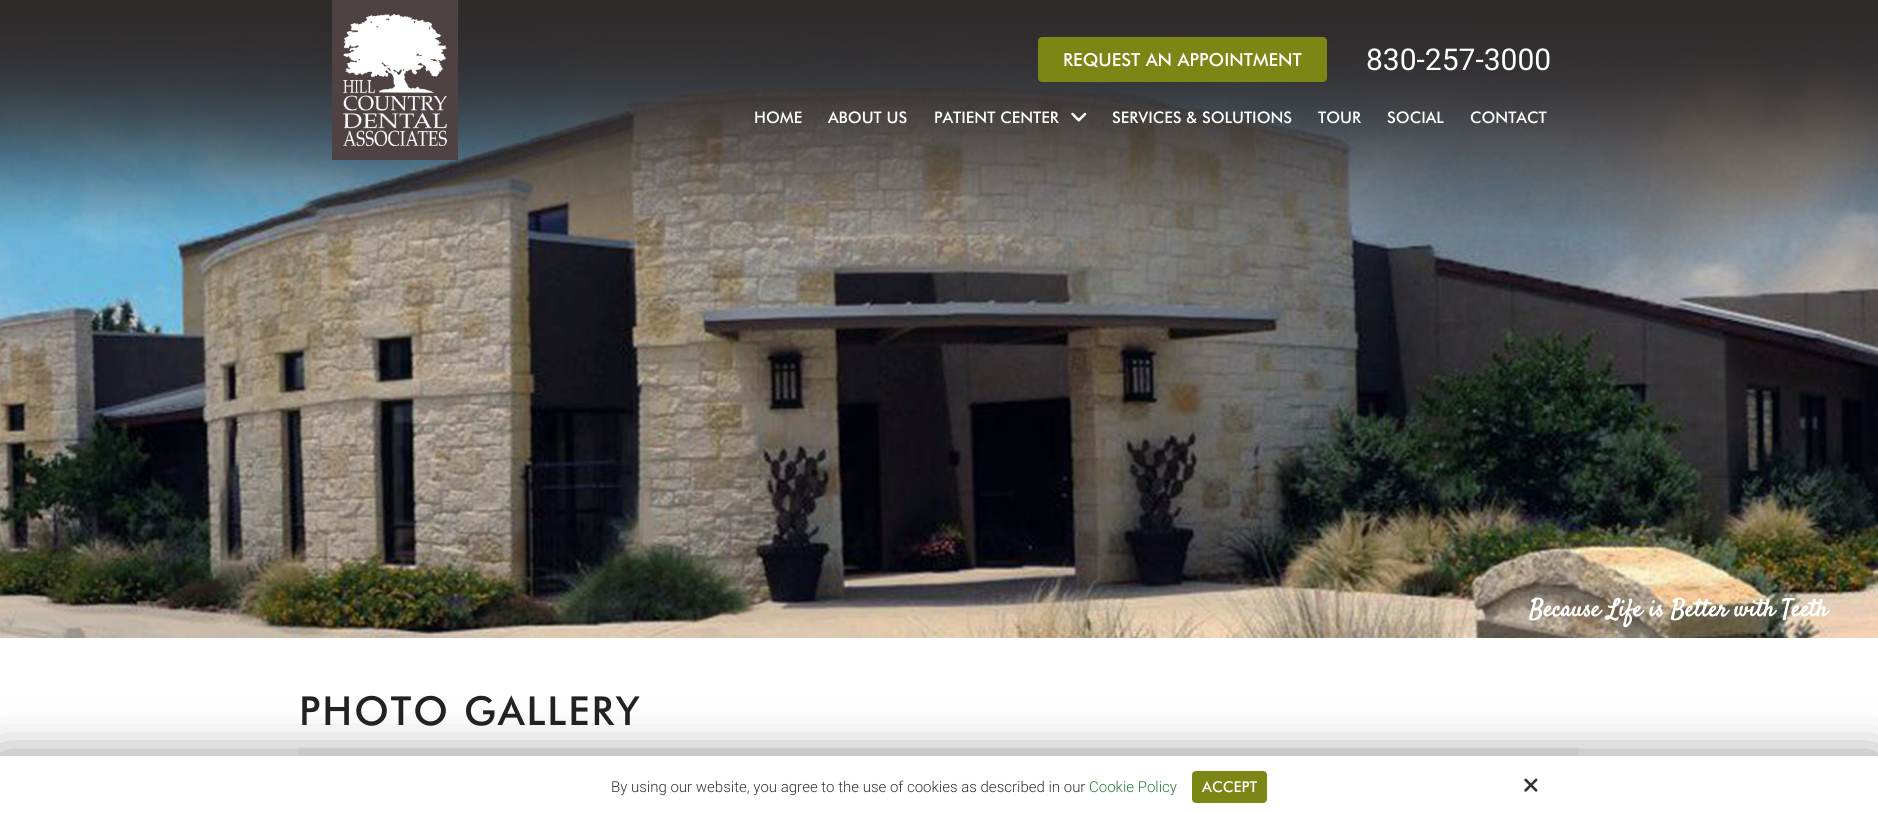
import math
import cairo

surface = cairo.ImageSurface(cairo.FORMAT_RGB24, 1878, 813)
cr = cairo.Context(surface)
options = cairo.FontOptions()
options.set_hint_metrics(cairo.HINT_METRICS_OFF)
options.set_hint_style(cairo.HINT_STYLE_NONE)
cr.set_font_options(options)
cr.set_miter_limit(4)


def rgb(code):
    cr.set_source_rgb(*(v / 255 for v in bytes.fromhex(code[-6:])))


def tracked(x, y, s, letter, word):
    cr.move_to(x, y)
    for ch in s:
        cr.show_text(ch)
        cr.rel_move_to(letter + word * (ch == ' '), 0)


def rrect(x, y, w, h, r):
    cr.new_sub_path()
    for i, (u, v) in enumerate([(x + w - r, y + h - r), (x + r, y + h - r), (x + r, y + r), (x + w - r, y + r)]):
        cr.arc(u, v, r, i * math.pi / 2, (i + 1) * math.pi / 2)
    cr.close_path()


def soft_shadow(x, y, w, h, r, blur, alpha):
    cr.push_group_with_content(cairo.CONTENT_ALPHA)
    cr.set_operator(cairo.OPERATOR_SOURCE)
    for i in range(15, -16, -2):
        e = blur * i / 6
        if min(w, h) + 2 * e > 0:
            cr.set_source_rgba(0, 0, 0, alpha * math.erfc((i - 1) / 8.5) / 2)
            rrect(x - e, y - e, w + 2 * e, h + 2 * e, max(0, min(r + e + blur * .6, min(w, h) / 2 + e)))
            cr.fill()
    cr.mask(cr.pop_group())


def image(path, x, y, w, h):
    cr.save()
    cr.set_source_surface(cairo.ImageSurface.create_from_png(path), x, y)
    cr.rectangle(x, y, w, h)
    cr.fill()
    cr.restore()


rgb("#ffffff")
cr.paint()
image("img/3.png", 0, 0, 1878, 638)
image("img/1.png", 332, 0, 126, 160)
rgb("#7b8614")
rrect(1038, 37, 289, 45, 4)
cr.fill()
image("img/2.png", 1071, 112, 16, 10)
rgb("#f5f5f5")
cr.rectangle(299, 747, 1280, 9)
cr.fill()
rgb("#000000")
soft_shadow(0, 761, 1878, 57, 0, 25, 0.5)
rgb("#ffffff")
cr.rectangle(0, 756, 1878, 57)
cr.fill()
rgb("#7b8614")
rrect(1192, 771, 75, 32, 4)
cr.fill()
image("img/4.png", 1524, 778, 14, 14)
cr.select_font_face("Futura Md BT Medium")
cr.set_font_size(18)
rgb("#ffffff")
cr.move_to(1063, 66)
cr.show_text("REQUEST AN APPOINTMENT")
cr.select_font_face("Roboto")
cr.set_font_size(30)
cr.move_to(1366, 70)
cr.show_text("830-257-3000")
cr.select_font_face("Futura Md BT Medium")
cr.set_font_size(16)
for x, y, s in [
    (754, 123, "HOME"),
    (828, 123, "ABOUT US"),
    (934, 123, "PATIENT CENTER"),
    (1112, 123, "SERVICES & SOLUTIONS"),
    (1318, 123, "TOUR"),
    (1387, 123, "SOCIAL"),
    (1470, 123, "CONTACT"),
]:
    cr.move_to(x, y)
    cr.show_text(s)
cr.select_font_face("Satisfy", cairo.FONT_SLANT_NORMAL, cairo.FONT_WEIGHT_BOLD)
cr.set_font_size(24)
cr.move_to(1529, 616)
cr.show_text("Because Life is Better with Teeth")
cr.select_font_face("Futura Md BT Medium")
cr.set_font_size(40)
rgb("#222222")
tracked(299, 725, "PHOTO GALLERY", 2, 0)
cr.select_font_face("Roboto Light")
cr.set_font_size(15)
rgb("#333333")
cr.move_to(611, 792)
cr.show_text("By using our website, you agree to the use of cookies as described in our")
rgb("#277c35")
cr.move_to(1089, 792)
cr.show_text("Cookie Policy")
cr.select_font_face("Futura Md BT Medium")
rgb("#ffffff")
cr.move_to(1202, 792)
cr.show_text("ACCEPT")
surface.write_to_png("page.png")
